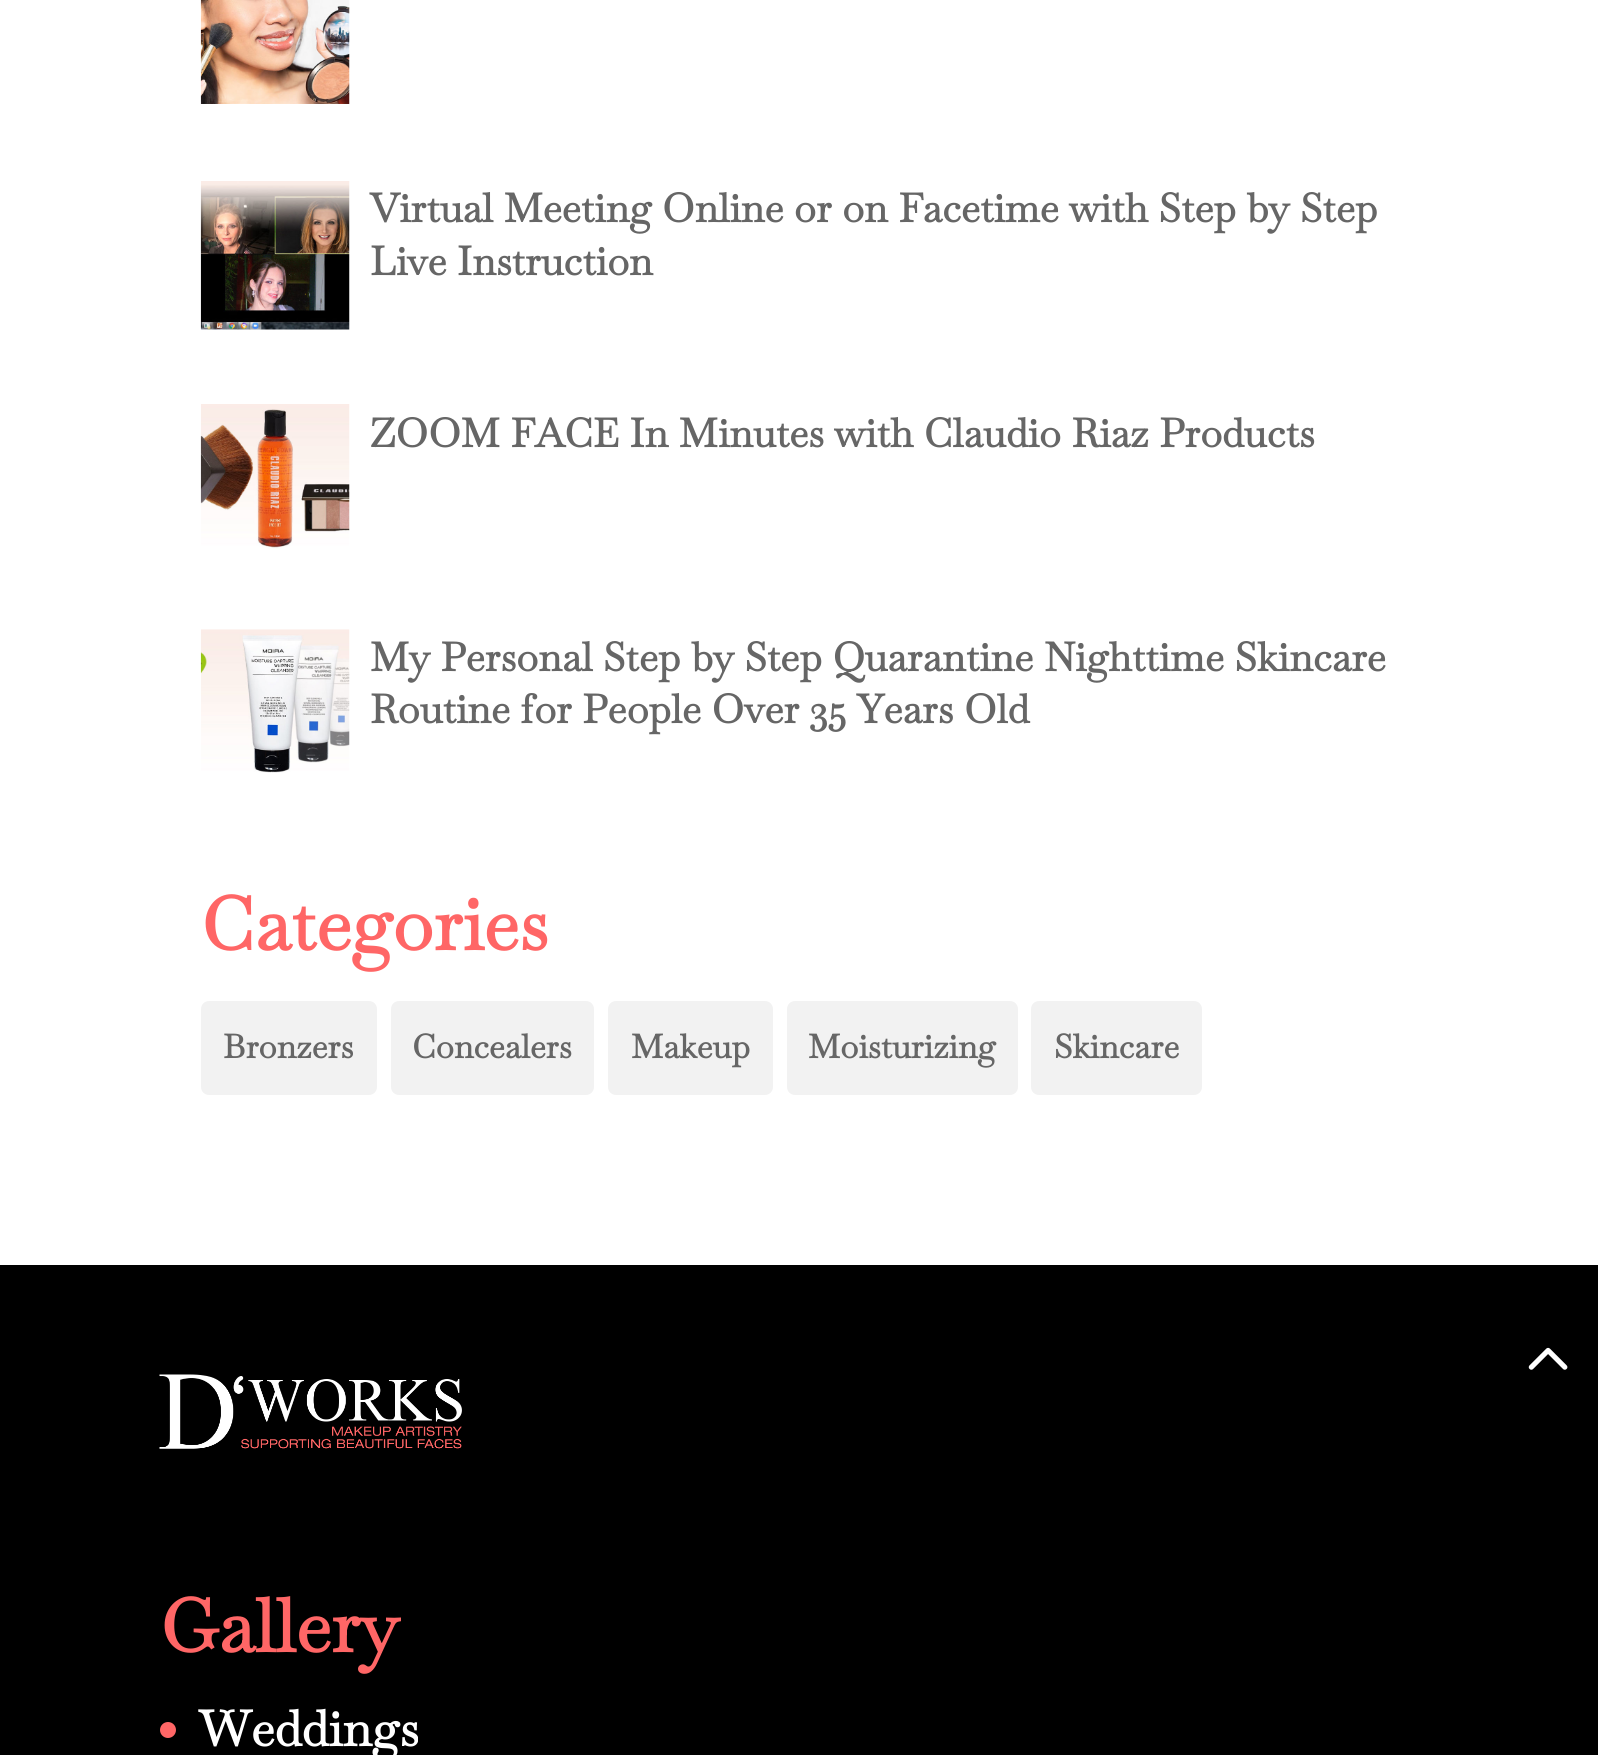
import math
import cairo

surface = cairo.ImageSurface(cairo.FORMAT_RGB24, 1598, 1755)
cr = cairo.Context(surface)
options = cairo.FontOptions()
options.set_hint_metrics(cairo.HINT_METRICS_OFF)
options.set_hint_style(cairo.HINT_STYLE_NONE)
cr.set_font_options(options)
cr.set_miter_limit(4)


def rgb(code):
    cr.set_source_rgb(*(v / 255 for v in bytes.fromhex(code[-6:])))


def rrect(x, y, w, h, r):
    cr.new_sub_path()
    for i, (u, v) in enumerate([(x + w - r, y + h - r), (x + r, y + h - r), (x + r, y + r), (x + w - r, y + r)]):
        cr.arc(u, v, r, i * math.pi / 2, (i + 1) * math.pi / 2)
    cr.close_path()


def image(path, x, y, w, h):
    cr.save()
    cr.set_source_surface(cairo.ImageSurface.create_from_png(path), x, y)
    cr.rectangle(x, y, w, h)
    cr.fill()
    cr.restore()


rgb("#000000")
cr.paint()
rgb("#ffffff")
cr.rectangle(0, 0, 1598, 1265)
cr.fill()
image("img/1.png", 200, 0, 150, 104)
image("img/2.png", 200, 181, 150, 149)
image("img/3.png", 200, 404, 150, 145)
image("img/4.png", 200, 629, 150, 144)
rgb("#f2f2f2")
rrect(201, 1001, 176, 94, 8)
cr.fill()
rrect(391, 1001, 203, 94, 8)
cr.fill()
rrect(608, 1001, 165, 94, 8)
cr.fill()
rrect(787, 1001, 231, 94, 8)
cr.fill()
rrect(1031, 1001, 171, 94, 8)
cr.fill()
image("img/5.png", 1528, 1347, 40, 23)
image("img/6.png", 159, 1374, 303, 75)
rgb("#ff6666")
cr.arc(168, 1730, 8, 0, 2 * math.pi)
cr.fill()
cr.select_font_face("Baskervville", cairo.FONT_SLANT_NORMAL, cairo.FONT_WEIGHT_BOLD)
cr.set_font_size(39.9)
rgb("#666666")
for x, y, s in [
    (370, 222, "Virtual Meeting Online or on Facetime with Step by Step"),
    (370, 275, "Live Instruction"),
    (370, 447, "ZOOM FACE In Minutes with Claudio Riaz Products"),
    (370, 671, "My Personal Step by Step Quarantine Nighttime Skincare"),
    (370, 723, "Routine for People Over 35 Years Old"),
]:
    cr.move_to(x, y)
    cr.show_text(s)
cr.set_font_size(74.25)
rgb("#ff6666")
cr.move_to(201, 950)
cr.show_text("Categories")
cr.set_font_size(33)
rgb("#666666")
for x, y, s in [
    (223, 1058, "Bronzers"),
    (412, 1058, "Concealers"),
    (631, 1058, "Makeup"),
    (808, 1058, "Moisturizing"),
    (1054, 1058, "Skincare"),
]:
    cr.move_to(x, y)
    cr.show_text(s)
cr.set_font_size(74.25)
rgb("#ff6666")
cr.move_to(160, 1652)
cr.show_text("Gallery")
cr.set_font_size(49.5)
rgb("#ffffff")
cr.move_to(199, 1746)
cr.show_text("Weddings")
surface.write_to_png("page.png")
